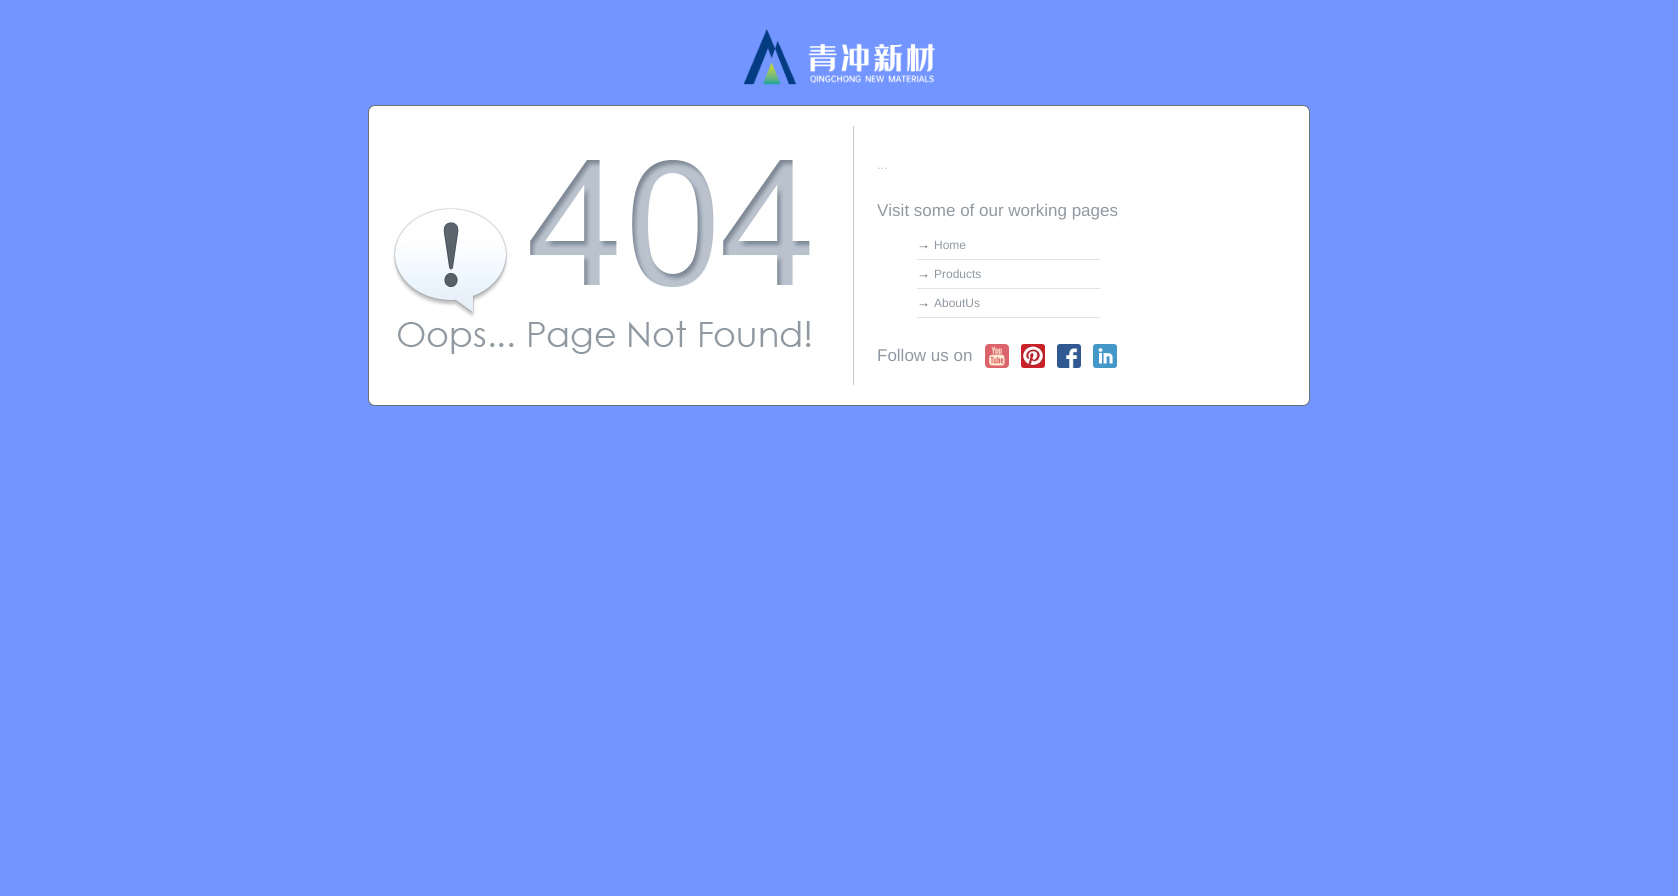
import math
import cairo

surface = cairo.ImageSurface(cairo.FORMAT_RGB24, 1678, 896)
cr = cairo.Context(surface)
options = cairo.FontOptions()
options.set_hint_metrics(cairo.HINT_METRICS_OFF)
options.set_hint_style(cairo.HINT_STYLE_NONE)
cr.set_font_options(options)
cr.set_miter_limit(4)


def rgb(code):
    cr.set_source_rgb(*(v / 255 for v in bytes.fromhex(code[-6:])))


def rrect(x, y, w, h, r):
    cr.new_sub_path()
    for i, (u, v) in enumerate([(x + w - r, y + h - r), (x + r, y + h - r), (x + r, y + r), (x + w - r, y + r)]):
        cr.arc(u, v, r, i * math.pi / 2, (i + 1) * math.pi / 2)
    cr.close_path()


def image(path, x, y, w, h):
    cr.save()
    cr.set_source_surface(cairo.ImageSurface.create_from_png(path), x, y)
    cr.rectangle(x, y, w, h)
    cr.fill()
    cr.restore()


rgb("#7395ff")
cr.paint()
image("img/1.png", 743, 29, 192, 56)
rgb("#ffffff")
rrect(368.5, 105.5, 941, 300, 6.5)
cr.fill_preserve()
rgb("#697076")
cr.set_line_width(1)
cr.stroke()
image("img/2.png", 392, 155, 424, 200)
for x, y, w, h, color in [
    (853, 126, 1, 259, "#c4c9ce"),
    (917, 259, 183, 1, "#dfe3e8"),
    (917, 288, 183, 1, "#dfe3e8"),
    (917, 317, 183, 1, "#dfe3e8"),
]:
    rgb(color)
    cr.rectangle(x, y, w, h)
    cr.fill()
image("img/3.png", 985, 344, 24, 24)
image("img/4.png", 1021, 344, 24, 24)
image("img/5.png", 1057, 344, 24, 24)
image("img/6.png", 1093, 344, 24, 24)
cr.select_font_face("Liberation Sans")
cr.set_font_size(13)
rgb("#bac2cd")
cr.move_to(877, 169)
cr.show_text("...")
cr.set_font_size(17)
rgb("#9099a2")
cr.move_to(877, 216)
cr.show_text("Visit some of our working pages")
cr.set_font_size(13)
rgb("#666666")
cr.move_to(917, 249)
cr.show_text("→")
cr.set_font_size(12)
rgb("#9099a2")
cr.move_to(934, 249)
cr.show_text("Home")
cr.set_font_size(13)
rgb("#666666")
cr.move_to(917, 278)
cr.show_text("→")
cr.set_font_size(12)
rgb("#9099a2")
cr.move_to(934, 278)
cr.show_text("Products")
cr.set_font_size(13)
rgb("#666666")
cr.move_to(917, 307)
cr.show_text("→")
cr.set_font_size(12)
rgb("#9099a2")
cr.move_to(934, 307)
cr.show_text("AboutUs")
cr.set_font_size(17)
cr.move_to(877, 361)
cr.show_text("Follow us on")
surface.write_to_png("page.png")
